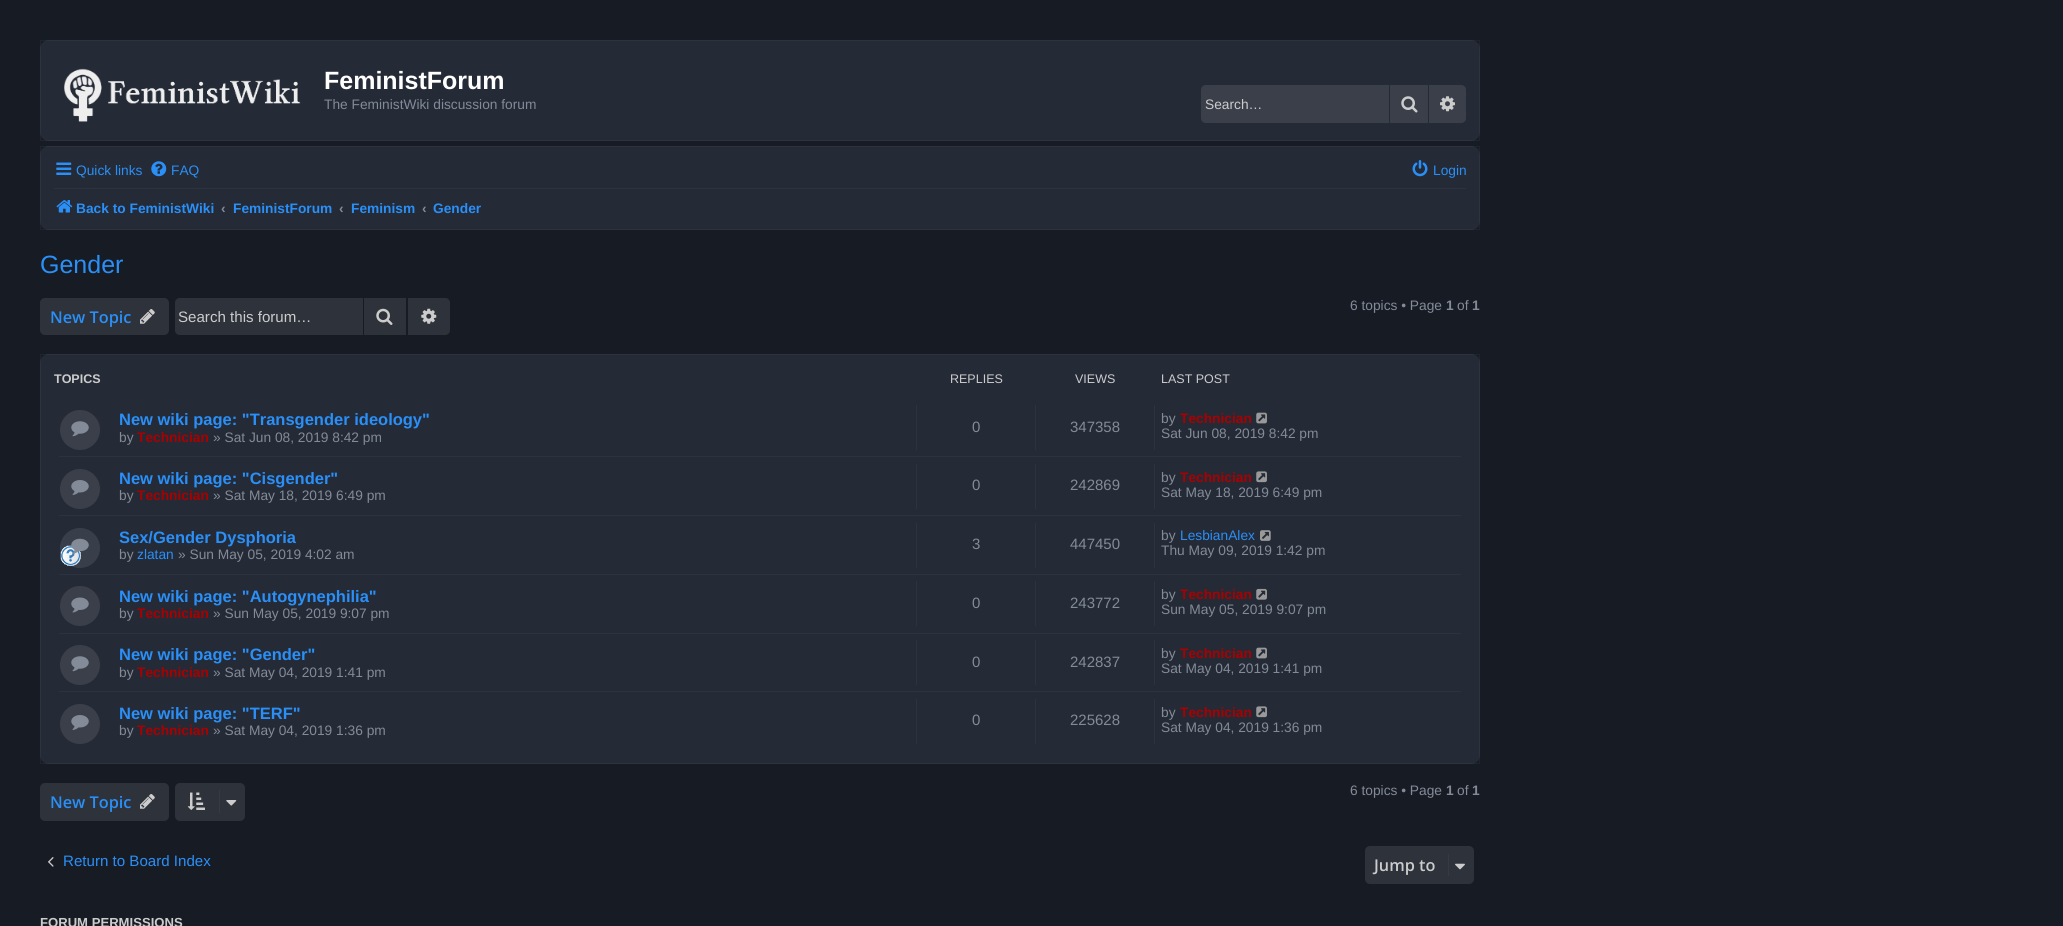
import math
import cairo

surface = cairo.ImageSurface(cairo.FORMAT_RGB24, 2063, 926)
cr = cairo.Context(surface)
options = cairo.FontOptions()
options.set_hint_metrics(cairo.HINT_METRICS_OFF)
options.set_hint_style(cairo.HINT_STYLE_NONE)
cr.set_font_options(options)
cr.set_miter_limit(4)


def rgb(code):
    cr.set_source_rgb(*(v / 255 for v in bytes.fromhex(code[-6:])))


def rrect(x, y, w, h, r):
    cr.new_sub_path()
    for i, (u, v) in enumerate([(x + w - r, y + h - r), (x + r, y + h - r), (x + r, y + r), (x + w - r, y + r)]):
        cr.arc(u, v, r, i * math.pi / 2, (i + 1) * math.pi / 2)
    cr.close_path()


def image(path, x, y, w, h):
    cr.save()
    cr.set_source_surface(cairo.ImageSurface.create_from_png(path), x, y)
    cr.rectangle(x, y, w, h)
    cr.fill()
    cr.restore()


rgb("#171b24")
cr.paint()
rgb("#242a36")
rrect(40, 40, 1440, 101, 9)
cr.fill()
cr.rectangle(40.5, 40.5, 1439, 100)
cr.set_source_rgba(1, 1, 1, 0.04)
cr.set_line_width(1)
cr.stroke()
image("img/1.png", 64, 68, 237, 54)
rgb("#3a3f4a")
cr.new_path()
cr.move_to(1206, 85)
cr.line_to(1389, 85)
cr.line_to(1389, 123)
cr.line_to(1206, 123)
cr.curve_to(1203, 123, 1201, 121, 1201, 118)
cr.line_to(1201, 90)
cr.curve_to(1201, 87, 1203, 85, 1206, 85)
cr.close_path()
cr.fill()
cr.rectangle(1390, 85, 38, 38)
cr.fill()
image("img/2.png", 1401, 96, 17, 17)
cr.new_path()
cr.move_to(1429, 85)
cr.line_to(1461, 85)
cr.curve_to(1464, 85, 1466, 87, 1466, 90)
cr.line_to(1466, 118)
cr.curve_to(1466, 121, 1464, 123, 1461, 123)
cr.line_to(1429, 123)
cr.close_path()
cr.fill()
image("img/3.png", 1440, 96, 15, 16)
rgb("#242a36")
rrect(40, 146, 1440, 84, 9)
cr.fill()
cr.rectangle(40.5, 146.5, 1439, 83)
cr.set_source_rgba(1, 1, 1, 0.04)
cr.stroke()
image("img/4.png", 56, 162, 16, 13)
image("img/5.png", 151, 161, 16, 16)
image("img/6.png", 1412, 160, 16, 17)
rgb("#2d333e")
cr.rectangle(54, 188, 1412, 1)
cr.fill()
image("img/7.png", 56, 200, 17, 13)
rgb("#2e323a")
rrect(40, 298, 129, 37, 5)
cr.fill()
image("img/8.png", 140, 309, 15, 15)
cr.new_path()
cr.move_to(180, 298)
cr.line_to(363, 298)
cr.line_to(363, 335)
cr.line_to(180, 335)
cr.curve_to(177, 335, 175, 333, 175, 330)
cr.line_to(175, 303)
cr.curve_to(175, 300, 177, 298, 180, 298)
cr.close_path()
cr.fill()
cr.rectangle(364, 298, 42, 37)
cr.fill()
image("img/9.png", 376, 308, 17, 17)
cr.new_path()
cr.move_to(408, 298)
cr.line_to(445, 298)
cr.curve_to(448, 298, 450, 300, 450, 303)
cr.line_to(450, 330)
cr.curve_to(450, 333, 448, 335, 445, 335)
cr.line_to(408, 335)
cr.close_path()
cr.fill()
image("img/10.png", 421, 308, 16, 16)
rgb("#242a36")
rrect(40, 354, 1440, 410, 9)
cr.fill()
cr.rectangle(40.5, 354.5, 1439, 409)
cr.set_source_rgba(1, 1, 1, 0.04)
cr.stroke()
rgb("#2d333e")
cr.rectangle(59, 456, 1402, 1)
cr.fill()
rgb("#3a3f4a")
cr.arc(80, 430, 20, 0, 2 * math.pi)
cr.fill()
image("img/11.png", 71, 421, 18, 16)
for x, y, w, h, color in [
    (916, 405, 1, 45, "#2d333e"),
    (1035, 405, 1, 45, "#2d333e"),
    (1154, 405, 1, 45, "#2d333e"),
]:
    rgb(color)
    cr.rectangle(x, y, w, h)
    cr.fill()
image("img/12.png", 1256, 412, 11, 12)
cr.rectangle(59, 515, 1402, 1)
cr.fill()
rgb("#3a3f4a")
cr.arc(80, 489, 20, 0, 2 * math.pi)
cr.fill()
image("img/13.png", 71, 480, 18, 15)
for x, y, w, h, color in [
    (916, 464, 1, 45, "#2d333e"),
    (1035, 464, 1, 45, "#2d333e"),
    (1154, 464, 1, 45, "#2d333e"),
]:
    rgb(color)
    cr.rectangle(x, y, w, h)
    cr.fill()
image("img/14.png", 1256, 471, 11, 12)
cr.rectangle(59, 574, 1402, 1)
cr.fill()
image("img/16.png", 60, 545, 21, 21)
cr.set_source_rgba(1, 1, 1, 0.1)
cr.arc(80, 548, 20, 0, 2 * math.pi)
cr.fill()
image("img/15.png", 71, 538, 18, 16)
for x, y, w, h, color in [
    (916, 523, 1, 45, "#2d333e"),
    (1035, 523, 1, 45, "#2d333e"),
    (1154, 523, 1, 45, "#2d333e"),
]:
    rgb(color)
    cr.rectangle(x, y, w, h)
    cr.fill()
image("img/17.png", 1260, 530, 11, 11)
cr.rectangle(59, 633, 1402, 1)
cr.fill()
rgb("#3a3f4a")
cr.arc(80, 606, 20, 0, 2 * math.pi)
cr.fill()
image("img/18.png", 71, 597, 18, 16)
for x, y, w, h, color in [
    (916, 581, 1, 45, "#2d333e"),
    (1035, 581, 1, 45, "#2d333e"),
    (1154, 581, 1, 45, "#2d333e"),
]:
    rgb(color)
    cr.rectangle(x, y, w, h)
    cr.fill()
image("img/19.png", 1256, 588, 11, 12)
cr.rectangle(59, 691, 1402, 1)
cr.fill()
rgb("#3a3f4a")
cr.arc(80, 665, 20, 0, 2 * math.pi)
cr.fill()
image("img/11.png", 71, 656, 18, 16)
for x, y, w, h, color in [
    (916, 640, 1, 45, "#2d333e"),
    (1035, 640, 1, 45, "#2d333e"),
    (1154, 640, 1, 45, "#2d333e"),
]:
    rgb(color)
    cr.rectangle(x, y, w, h)
    cr.fill()
image("img/12.png", 1256, 647, 11, 12)
rgb("#3a3f4a")
cr.arc(80, 724, 20, 0, 2 * math.pi)
cr.fill()
image("img/13.png", 71, 715, 18, 15)
for x, y, w, h, color in [
    (916, 699, 1, 45, "#2d333e"),
    (1035, 699, 1, 45, "#2d333e"),
    (1154, 699, 1, 45, "#2d333e"),
]:
    rgb(color)
    cr.rectangle(x, y, w, h)
    cr.fill()
image("img/14.png", 1256, 706, 11, 12)
rgb("#2e323a")
rrect(175, 783, 70, 38, 5)
cr.fill()
image("img/20.png", 187, 792, 18, 18)
rgb("#363a42")
cr.rectangle(219, 790, 1, 23)
cr.fill()
image("img/21.png", 226, 800, 11, 6)
rgb("#2e323a")
rrect(40, 783, 129, 38, 5)
cr.fill()
image("img/8.png", 140, 794, 15, 15)
image("img/22.png", 48, 857, 6, 10)
rrect(1365, 846, 109, 38, 5)
cr.fill()
rgb("#363a42")
cr.rectangle(1448, 854, 1, 22)
cr.fill()
image("img/23.png", 1455, 863, 10, 7)
cr.select_font_face("Liberation Sans", cairo.FONT_SLANT_NORMAL, cairo.FONT_WEIGHT_BOLD)
cr.set_font_size(25)
rgb("#ffffff")
cr.move_to(324, 89)
cr.show_text("FeministForum")
cr.select_font_face("Liberation Sans")
cr.set_font_size(13.75)
rgb("#838b98")
cr.move_to(324, 109)
cr.show_text("The FeministWiki discussion forum")
rgb("#cccccc")
cr.move_to(1205, 109)
cr.show_text("Search…")
rgb("#2a8ff7")
for x, y, s in [
    (76, 175, "Quick links"),
    (171, 175, "FAQ"),
    (1433, 175, "Login"),
]:
    cr.move_to(x, y)
    cr.show_text(s)
cr.select_font_face("Liberation Sans", cairo.FONT_SLANT_NORMAL, cairo.FONT_WEIGHT_BOLD)
cr.move_to(76, 213)
cr.show_text("Back to FeministWiki")
rgb("#838b98")
cr.move_to(221, 213)
cr.show_text("‹")
rgb("#2a8ff7")
cr.move_to(233, 213)
cr.show_text("FeministForum")
rgb("#838b98")
cr.move_to(339, 213)
cr.show_text("‹")
rgb("#2a8ff7")
cr.move_to(351, 213)
cr.show_text("Feminism")
rgb("#838b98")
cr.move_to(422, 213)
cr.show_text("‹")
rgb("#2a8ff7")
cr.move_to(433, 213)
cr.show_text("Gender")
cr.select_font_face("Liberation Sans")
cr.set_font_size(25)
cr.move_to(40, 273)
cr.show_text("Gender")
cr.set_font_size(13.75)
rgb("#838b98")
cr.move_to(1350, 310)
cr.show_text("6 topics • Page")
cr.select_font_face("Liberation Sans", cairo.FONT_SLANT_NORMAL, cairo.FONT_WEIGHT_BOLD)
cr.move_to(1446, 310)
cr.show_text("1")
cr.select_font_face("Liberation Sans")
cr.move_to(1457, 310)
cr.show_text("of")
cr.select_font_face("Liberation Sans", cairo.FONT_SLANT_NORMAL, cairo.FONT_WEIGHT_BOLD)
cr.move_to(1472, 310)
cr.show_text("1")
cr.select_font_face("Open Sans SemiBold")
cr.set_font_size(16.25)
rgb("#2a8ff7")
cr.move_to(50, 323)
cr.show_text("New Topic")
cr.select_font_face("Liberation Sans")
cr.set_font_size(15.1)
rgb("#cccccc")
cr.move_to(178, 322)
cr.show_text("Search this forum…")
cr.select_font_face("Liberation Sans", cairo.FONT_SLANT_NORMAL, cairo.FONT_WEIGHT_BOLD)
cr.set_font_size(12.5)
cr.move_to(54, 383)
cr.show_text("TOPICS")
cr.select_font_face("Liberation Sans")
for x, y, s in [
    (950, 383, "REPLIES"),
    (1075, 383, "VIEWS"),
    (1161, 383, "LAST POST"),
]:
    cr.move_to(x, y)
    cr.show_text(s)
cr.select_font_face("Liberation Sans", cairo.FONT_SLANT_NORMAL, cairo.FONT_WEIGHT_BOLD)
cr.set_font_size(16.5)
rgb("#2a8ff7")
cr.move_to(119, 425)
cr.show_text("New wiki page: \"Transgender ideology\"")
cr.select_font_face("Liberation Sans")
cr.set_font_size(13.75)
rgb("#838b98")
cr.move_to(119, 442)
cr.show_text("by")
cr.select_font_face("Liberation Sans", cairo.FONT_SLANT_NORMAL, cairo.FONT_WEIGHT_BOLD)
rgb("#aa0000")
cr.move_to(137, 442)
cr.show_text("Technician")
cr.select_font_face("Liberation Sans")
rgb("#838b98")
cr.move_to(213, 442)
cr.show_text("» Sat Jun 08, 2019 8:42 pm")
cr.set_font_size(15)
cr.move_to(972, 432)
cr.show_text("0")
cr.move_to(1070, 432)
cr.show_text("347358")
cr.set_font_size(13.75)
cr.move_to(1161, 423)
cr.show_text("by")
cr.select_font_face("Liberation Sans", cairo.FONT_SLANT_NORMAL, cairo.FONT_WEIGHT_BOLD)
rgb("#aa0000")
cr.move_to(1180, 423)
cr.show_text("Technician")
cr.select_font_face("Liberation Sans")
rgb("#838b98")
cr.move_to(1161, 438)
cr.show_text("Sat Jun 08, 2019 8:42 pm")
cr.select_font_face("Liberation Sans", cairo.FONT_SLANT_NORMAL, cairo.FONT_WEIGHT_BOLD)
cr.set_font_size(16.5)
rgb("#2a8ff7")
cr.move_to(119, 484)
cr.show_text("New wiki page: \"Cisgender\"")
cr.select_font_face("Liberation Sans")
cr.set_font_size(13.75)
rgb("#838b98")
cr.move_to(119, 500)
cr.show_text("by")
cr.select_font_face("Liberation Sans", cairo.FONT_SLANT_NORMAL, cairo.FONT_WEIGHT_BOLD)
rgb("#aa0000")
cr.move_to(137, 500)
cr.show_text("Technician")
cr.select_font_face("Liberation Sans")
rgb("#838b98")
cr.move_to(213, 500)
cr.show_text("» Sat May 18, 2019 6:49 pm")
cr.set_font_size(15)
cr.move_to(972, 490)
cr.show_text("0")
cr.move_to(1070, 490)
cr.show_text("242869")
cr.set_font_size(13.75)
cr.move_to(1161, 482)
cr.show_text("by")
cr.select_font_face("Liberation Sans", cairo.FONT_SLANT_NORMAL, cairo.FONT_WEIGHT_BOLD)
rgb("#aa0000")
cr.move_to(1180, 482)
cr.show_text("Technician")
cr.select_font_face("Liberation Sans")
rgb("#838b98")
cr.move_to(1161, 497)
cr.show_text("Sat May 18, 2019 6:49 pm")
cr.select_font_face("Liberation Sans", cairo.FONT_SLANT_NORMAL, cairo.FONT_WEIGHT_BOLD)
cr.set_font_size(16.5)
rgb("#2a8ff7")
cr.move_to(119, 543)
cr.show_text("Sex/Gender Dysphoria")
cr.select_font_face("Liberation Sans")
cr.set_font_size(13.75)
rgb("#838b98")
cr.move_to(119, 559)
cr.show_text("by")
rgb("#2a8ff7")
cr.move_to(137, 559)
cr.show_text("zlatan")
rgb("#838b98")
cr.move_to(178, 559)
cr.show_text("» Sun May 05, 2019 4:02 am")
cr.set_font_size(15)
cr.move_to(972, 549)
cr.show_text("3")
cr.move_to(1070, 549)
cr.show_text("447450")
cr.set_font_size(13.75)
cr.move_to(1161, 540)
cr.show_text("by")
rgb("#2a8ff7")
cr.move_to(1180, 540)
cr.show_text("LesbianAlex")
rgb("#838b98")
cr.move_to(1161, 555)
cr.show_text("Thu May 09, 2019 1:42 pm")
cr.select_font_face("Liberation Sans", cairo.FONT_SLANT_NORMAL, cairo.FONT_WEIGHT_BOLD)
cr.set_font_size(16.5)
rgb("#2a8ff7")
cr.move_to(119, 602)
cr.show_text("New wiki page: \"Autogynephilia\"")
cr.select_font_face("Liberation Sans")
cr.set_font_size(13.75)
rgb("#838b98")
cr.move_to(119, 618)
cr.show_text("by")
cr.select_font_face("Liberation Sans", cairo.FONT_SLANT_NORMAL, cairo.FONT_WEIGHT_BOLD)
rgb("#aa0000")
cr.move_to(137, 618)
cr.show_text("Technician")
cr.select_font_face("Liberation Sans")
rgb("#838b98")
cr.move_to(213, 618)
cr.show_text("» Sun May 05, 2019 9:07 pm")
cr.set_font_size(15)
cr.move_to(972, 608)
cr.show_text("0")
cr.move_to(1070, 608)
cr.show_text("243772")
cr.set_font_size(13.75)
cr.move_to(1161, 599)
cr.show_text("by")
cr.select_font_face("Liberation Sans", cairo.FONT_SLANT_NORMAL, cairo.FONT_WEIGHT_BOLD)
rgb("#aa0000")
cr.move_to(1180, 599)
cr.show_text("Technician")
cr.select_font_face("Liberation Sans")
rgb("#838b98")
cr.move_to(1161, 614)
cr.show_text("Sun May 05, 2019 9:07 pm")
cr.select_font_face("Liberation Sans", cairo.FONT_SLANT_NORMAL, cairo.FONT_WEIGHT_BOLD)
cr.set_font_size(16.5)
rgb("#2a8ff7")
cr.move_to(119, 660)
cr.show_text("New wiki page: \"Gender\"")
cr.select_font_face("Liberation Sans")
cr.set_font_size(13.75)
rgb("#838b98")
cr.move_to(119, 677)
cr.show_text("by")
cr.select_font_face("Liberation Sans", cairo.FONT_SLANT_NORMAL, cairo.FONT_WEIGHT_BOLD)
rgb("#aa0000")
cr.move_to(137, 677)
cr.show_text("Technician")
cr.select_font_face("Liberation Sans")
rgb("#838b98")
cr.move_to(213, 677)
cr.show_text("» Sat May 04, 2019 1:41 pm")
cr.set_font_size(15)
cr.move_to(972, 667)
cr.show_text("0")
cr.move_to(1070, 667)
cr.show_text("242837")
cr.set_font_size(13.75)
cr.move_to(1161, 658)
cr.show_text("by")
cr.select_font_face("Liberation Sans", cairo.FONT_SLANT_NORMAL, cairo.FONT_WEIGHT_BOLD)
rgb("#aa0000")
cr.move_to(1180, 658)
cr.show_text("Technician")
cr.select_font_face("Liberation Sans")
rgb("#838b98")
cr.move_to(1161, 673)
cr.show_text("Sat May 04, 2019 1:41 pm")
cr.select_font_face("Liberation Sans", cairo.FONT_SLANT_NORMAL, cairo.FONT_WEIGHT_BOLD)
cr.set_font_size(16.5)
rgb("#2a8ff7")
cr.move_to(119, 719)
cr.show_text("New wiki page: \"TERF\"")
cr.select_font_face("Liberation Sans")
cr.set_font_size(13.75)
rgb("#838b98")
cr.move_to(119, 735)
cr.show_text("by")
cr.select_font_face("Liberation Sans", cairo.FONT_SLANT_NORMAL, cairo.FONT_WEIGHT_BOLD)
rgb("#aa0000")
cr.move_to(137, 735)
cr.show_text("Technician")
cr.select_font_face("Liberation Sans")
rgb("#838b98")
cr.move_to(213, 735)
cr.show_text("» Sat May 04, 2019 1:36 pm")
cr.set_font_size(15)
cr.move_to(972, 725)
cr.show_text("0")
cr.move_to(1070, 725)
cr.show_text("225628")
cr.set_font_size(13.75)
cr.move_to(1161, 717)
cr.show_text("by")
cr.select_font_face("Liberation Sans", cairo.FONT_SLANT_NORMAL, cairo.FONT_WEIGHT_BOLD)
rgb("#aa0000")
cr.move_to(1180, 717)
cr.show_text("Technician")
cr.select_font_face("Liberation Sans")
rgb("#838b98")
cr.move_to(1161, 732)
cr.show_text("Sat May 04, 2019 1:36 pm")
cr.move_to(1350, 795)
cr.show_text("6 topics • Page")
cr.select_font_face("Liberation Sans", cairo.FONT_SLANT_NORMAL, cairo.FONT_WEIGHT_BOLD)
cr.move_to(1446, 795)
cr.show_text("1")
cr.select_font_face("Liberation Sans")
cr.move_to(1457, 795)
cr.show_text("of")
cr.select_font_face("Liberation Sans", cairo.FONT_SLANT_NORMAL, cairo.FONT_WEIGHT_BOLD)
cr.move_to(1472, 795)
cr.show_text("1")
cr.select_font_face("Open Sans SemiBold")
cr.set_font_size(16.25)
rgb("#2a8ff7")
cr.move_to(50, 808)
cr.show_text("New Topic")
cr.select_font_face("Liberation Sans")
cr.set_font_size(15.1)
cr.move_to(63, 866)
cr.show_text("Return to Board Index")
cr.select_font_face("Open Sans SemiBold")
cr.set_font_size(16.25)
rgb("#cccccc")
cr.move_to(1374, 871)
cr.show_text("Jump to")
cr.select_font_face("Liberation Sans", cairo.FONT_SLANT_NORMAL, cairo.FONT_WEIGHT_BOLD)
cr.set_font_size(13.1)
cr.move_to(40, 927)
cr.show_text("FORUM PERMISSIONS")
surface.write_to_png("page.png")
